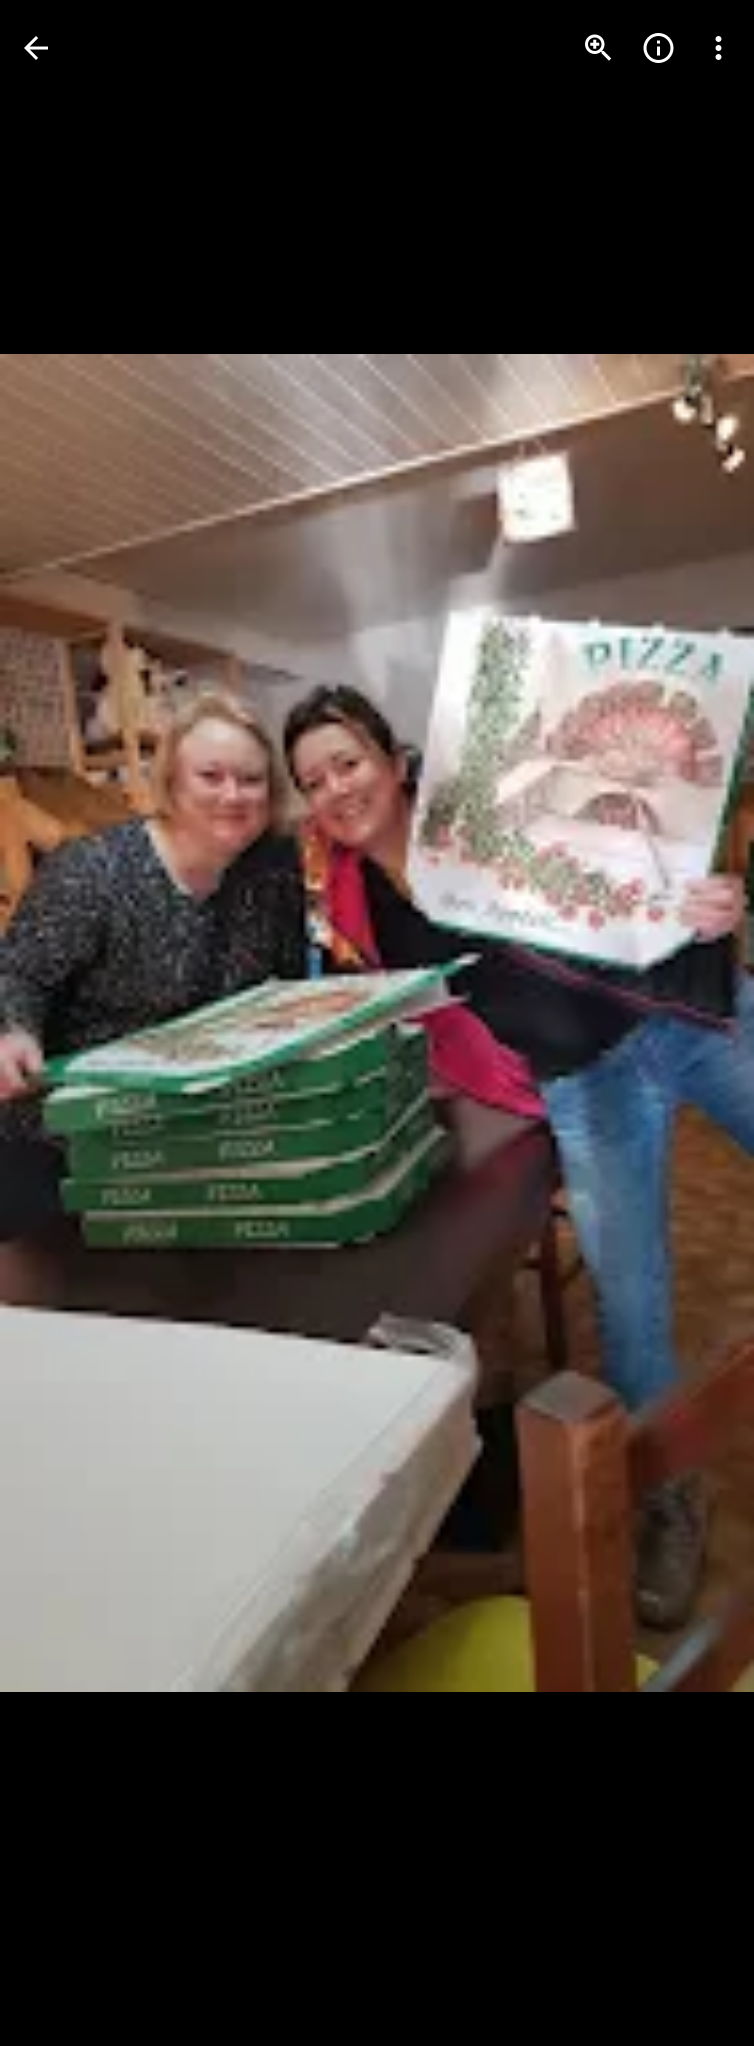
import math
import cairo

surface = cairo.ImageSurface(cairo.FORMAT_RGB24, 754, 2046)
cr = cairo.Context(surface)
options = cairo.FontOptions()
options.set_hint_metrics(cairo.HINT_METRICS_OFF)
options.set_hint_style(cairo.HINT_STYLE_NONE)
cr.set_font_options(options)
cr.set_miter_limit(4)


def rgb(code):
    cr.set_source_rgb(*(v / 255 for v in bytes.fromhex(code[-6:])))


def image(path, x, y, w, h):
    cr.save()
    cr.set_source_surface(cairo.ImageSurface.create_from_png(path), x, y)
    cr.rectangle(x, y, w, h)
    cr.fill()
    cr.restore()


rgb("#000000")
cr.paint()
image("img/1.png", 24, 36, 24, 24)
image("img/2.png", 585, 34, 27, 27)
image("img/3.png", 643, 33, 31, 30)
image("img/4.png", 715, 36, 7, 24)
image("img/5.png", 0, 354, 754, 1338)
surface.write_to_png("page.png")
